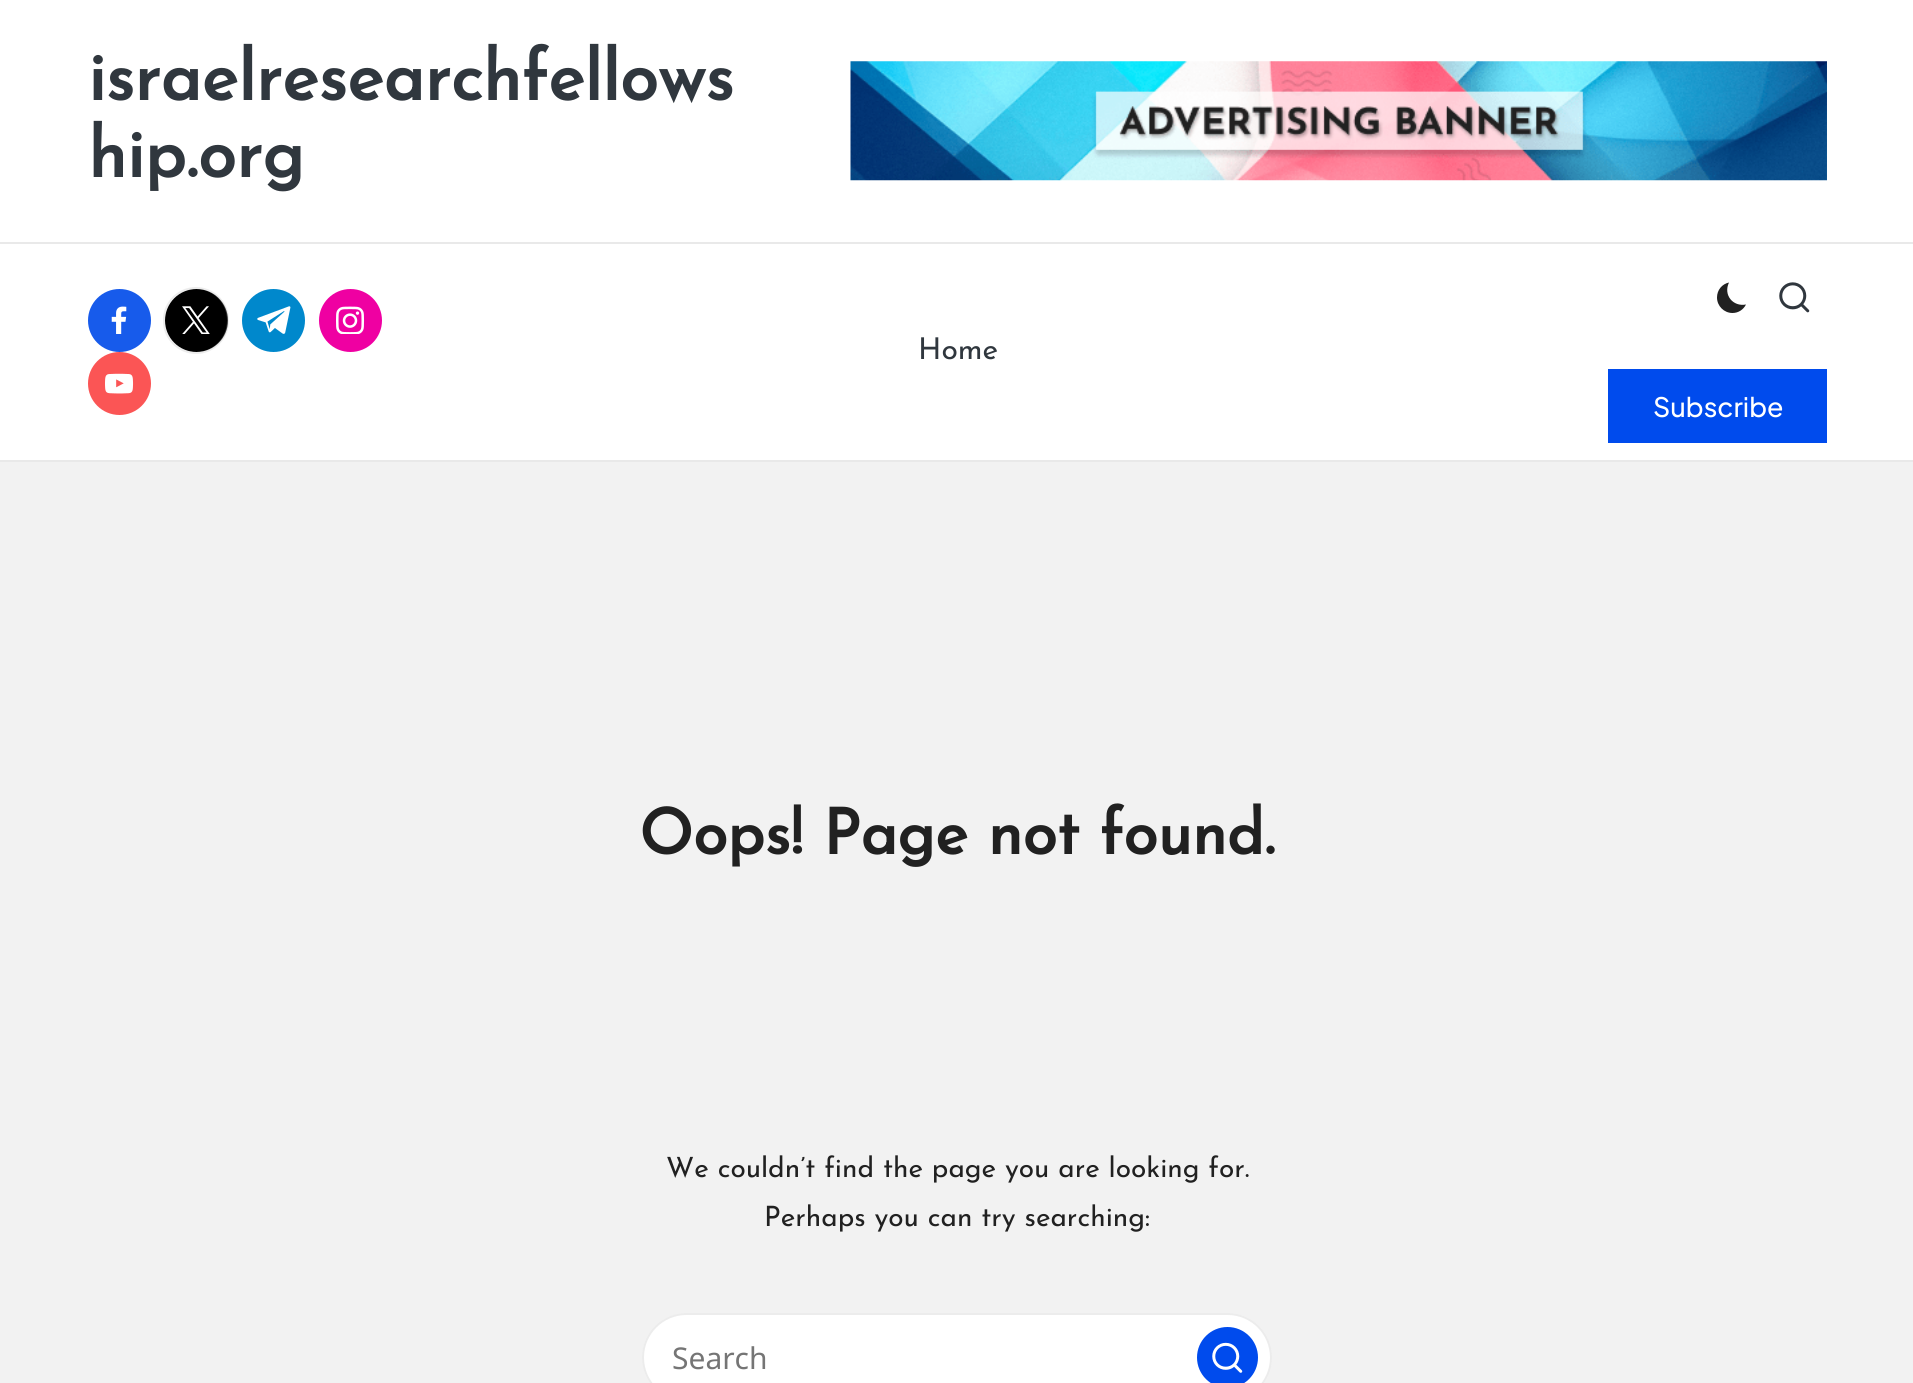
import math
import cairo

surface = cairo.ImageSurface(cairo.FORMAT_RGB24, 1913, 1383)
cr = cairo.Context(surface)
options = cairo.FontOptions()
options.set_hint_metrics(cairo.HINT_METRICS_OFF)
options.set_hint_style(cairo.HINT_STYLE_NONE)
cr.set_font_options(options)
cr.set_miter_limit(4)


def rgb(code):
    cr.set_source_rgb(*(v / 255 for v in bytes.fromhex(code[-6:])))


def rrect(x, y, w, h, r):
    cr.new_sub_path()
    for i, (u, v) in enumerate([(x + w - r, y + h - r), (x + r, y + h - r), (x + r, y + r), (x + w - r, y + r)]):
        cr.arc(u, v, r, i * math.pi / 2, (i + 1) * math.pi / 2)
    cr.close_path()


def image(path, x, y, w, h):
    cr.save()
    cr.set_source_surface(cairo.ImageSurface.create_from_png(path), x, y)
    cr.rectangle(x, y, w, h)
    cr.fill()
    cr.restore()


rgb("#f2f2f2")
cr.paint()
rgb("#ffffff")
cr.rectangle(0, 0, 1913, 242)
cr.fill()
image("img/1.png", 850, 61, 977, 120)
for x, y, w, h, color in [
    (0, 244, 1913, 216, "#ffffff"),
    (0, 242, 1913, 2, "#e9e9e9"),
    (0, 460, 1913, 2, "#e9e9e9"),
]:
    rgb(color)
    cr.rectangle(x, y, w, h)
    cr.fill()
rgb("#175beb")
cr.arc(119.5, 320.5, 31.5, 0, 2 * math.pi)
cr.fill()
image("img/2.png", 111, 306, 16, 28)
rgb("#000000")
cr.arc(196.5, 320.5, 31.5, 0, 2 * math.pi)
cr.fill()
rrect(164, 288, 64, 65, 32)
cr.set_source_rgba(0.745, 0.745, 0.745, 0.3)
cr.stroke()
image("img/3.png", 182, 306, 28, 28)
rgb("#0088cc")
cr.arc(273.5, 320.5, 31.5, 0, 2 * math.pi)
cr.fill()
image("img/4.png", 257, 306, 34, 28)
rgb("#ef00a2")
cr.arc(350.5, 320.5, 31.5, 0, 2 * math.pi)
cr.fill()
image("img/5.png", 336, 306, 29, 28)
rgb("#fb5555")
cr.arc(119.5, 383.5, 31.5, 0, 2 * math.pi)
cr.fill()
image("img/6.png", 105, 373, 29, 21)
rgb("#212121")
cr.new_path()
cr.move_to(1746, 304.5)
cr.curve_to(1733, 307, 1723, 295, 1729, 282.5)
cr.curve_to(1722, 284, 1717, 290, 1717, 297.5)
cr.curve_to(1717, 306, 1724, 313, 1732.5, 313)
cr.curve_to(1738.5, 313, 1743.5, 309.5, 1746, 304.5)
cr.close_path()
cr.fill()
image("img/7.png", 1779, 282, 31, 31)
rgb("#004bed")
cr.rectangle(1608, 369, 219, 74)
cr.fill()
rgb("#ffffff")
rrect(642, 1313, 630, 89, 44.5)
cr.fill()
rrect(643, 1314, 628, 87, 43.5)
cr.set_source_rgba(0.745, 0.745, 0.745, 0.3)
cr.stroke()
rgb("#004bed")
cr.arc(1227.5, 1357.5, 30.5, 0, 2 * math.pi)
cr.fill()
image("img/8.png", 1212, 1342, 31, 31)
cr.select_font_face("Josefin Sans", cairo.FONT_SLANT_NORMAL, cairo.FONT_WEIGHT_BOLD)
cr.set_font_size(70)
rgb("#30373e")
cr.move_to(88, 100)
cr.show_text("israelresearchfellows")
cr.move_to(88, 177)
cr.show_text("hip.org")
cr.select_font_face("Josefin Sans Thin")
cr.set_font_size(30)
cr.move_to(918, 359)
cr.show_text("Home")
cr.select_font_face("Plus Jakarta Sans Medium")
cr.set_font_size(26.75)
rgb("#ffffff")
cr.move_to(1653, 417)
cr.show_text("Subscribe")
cr.select_font_face("Josefin Sans", cairo.FONT_SLANT_NORMAL, cairo.FONT_WEIGHT_BOLD)
cr.set_font_size(63)
rgb("#212121")
cr.move_to(639, 854)
cr.show_text("Oops! Page not found.")
cr.select_font_face("Josefin Sans Thin")
cr.set_font_size(28)
cr.move_to(666, 1177)
cr.show_text("We couldn’t find the page you are looking for.")
cr.move_to(764, 1226)
cr.show_text("Perhaps you can try searching:")
cr.select_font_face("Noto Sans")
cr.set_font_size(30)
rgb("#757575")
cr.move_to(672, 1369)
cr.show_text("Search")
surface.write_to_png("page.png")
